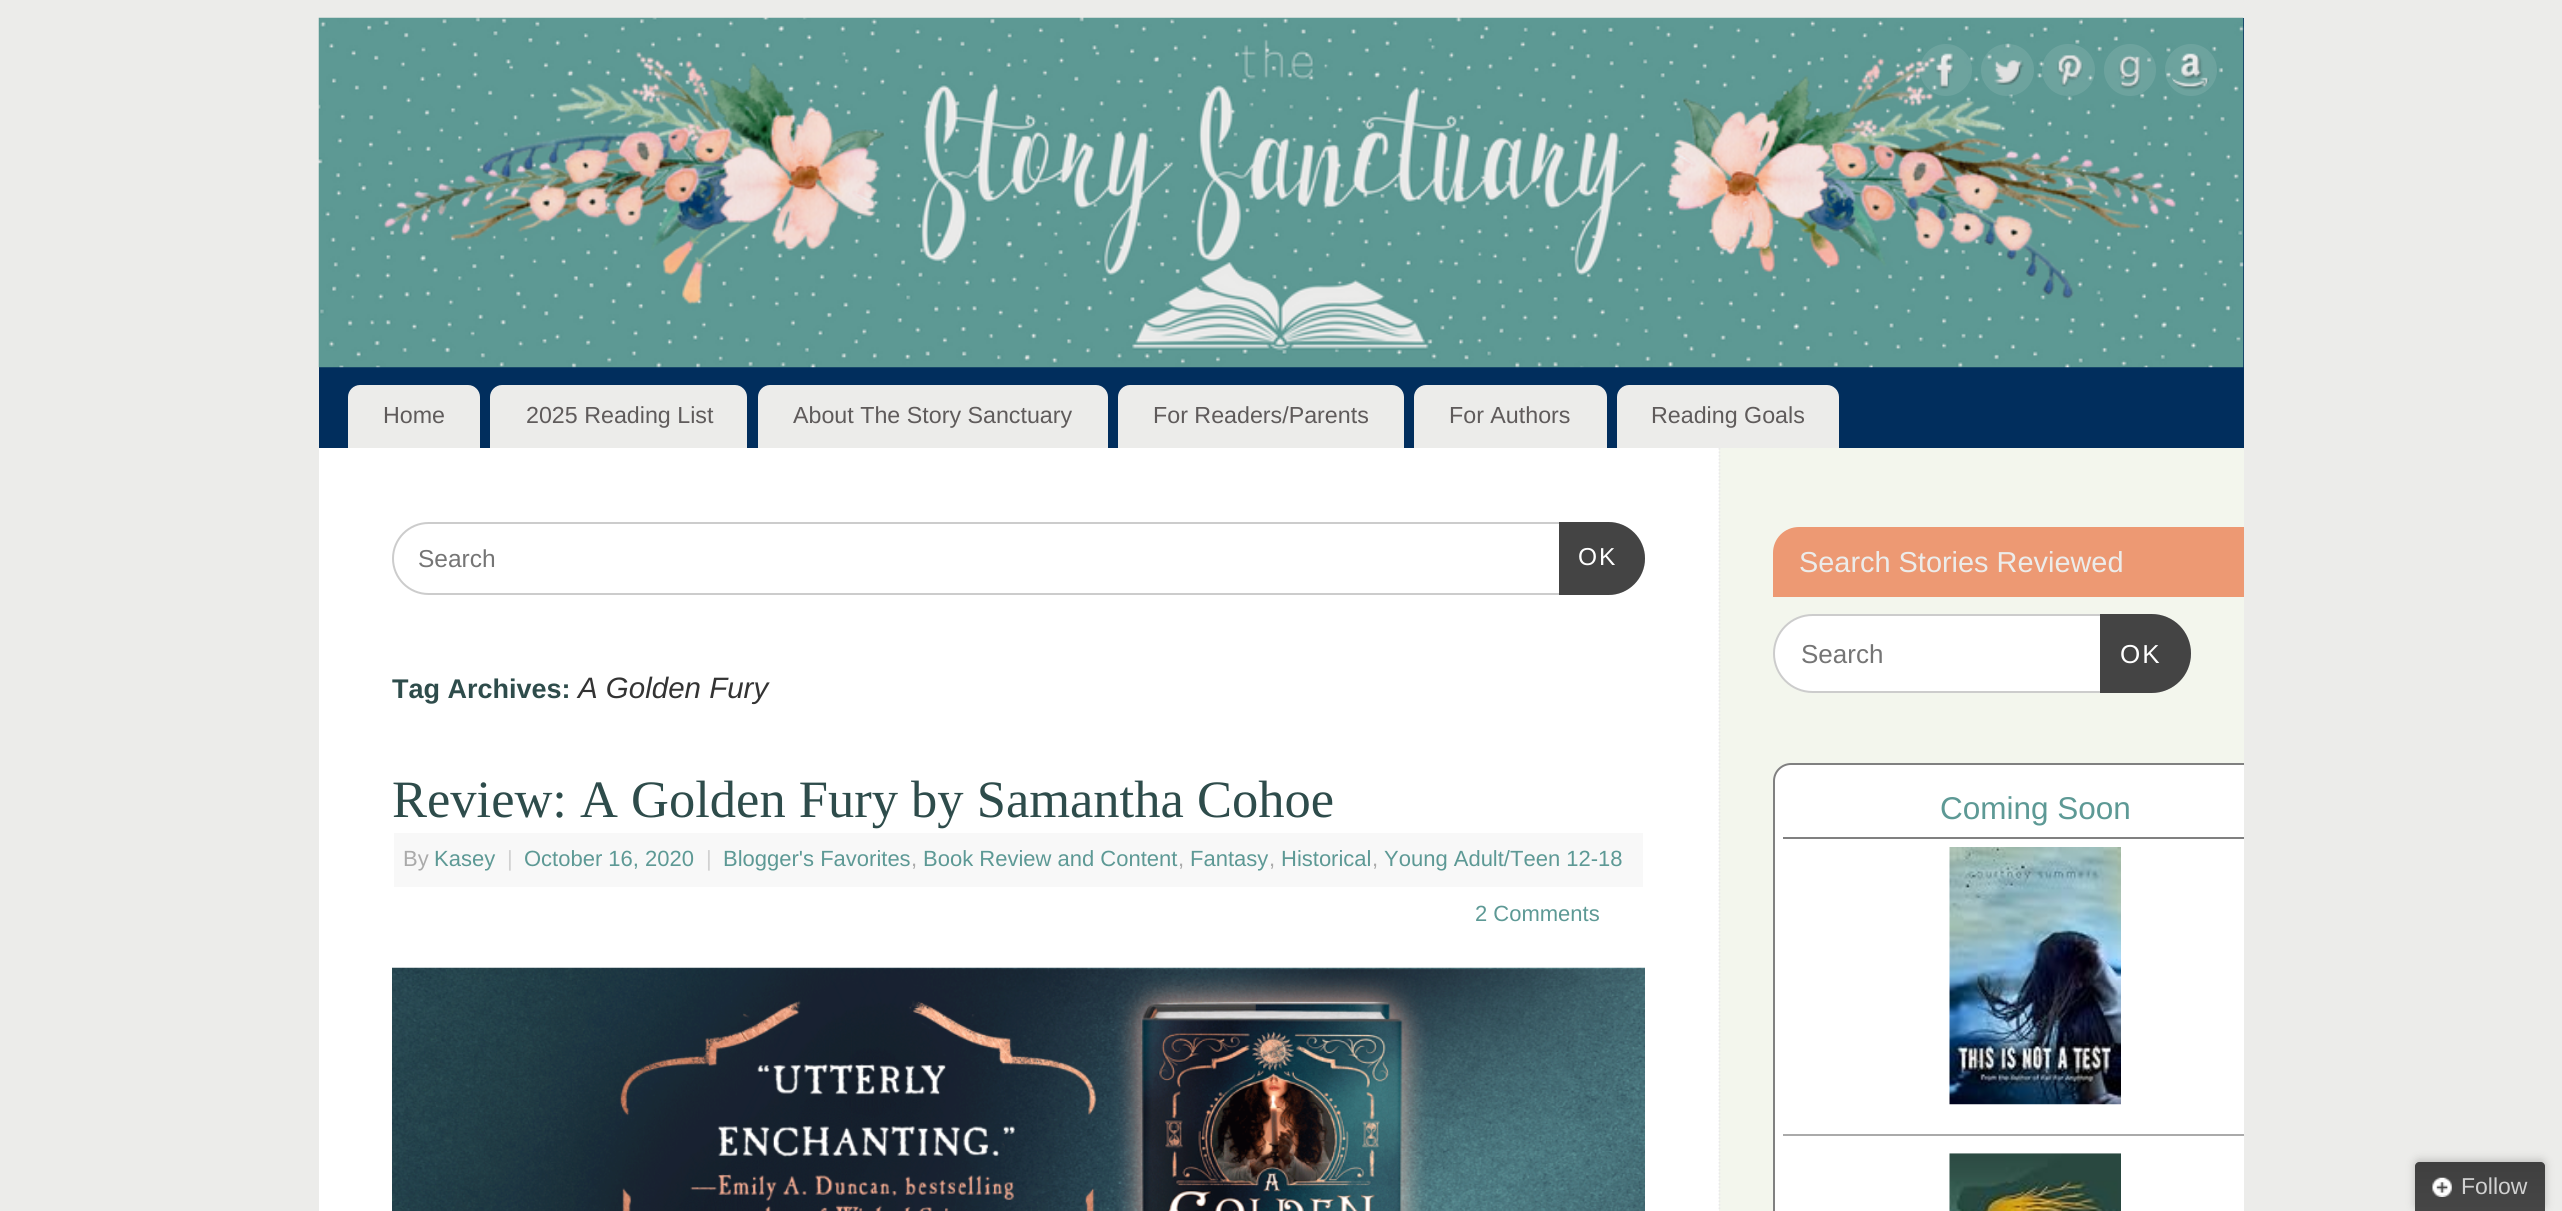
import math
import cairo

surface = cairo.ImageSurface(cairo.FORMAT_RGB24, 2562, 1211)
cr = cairo.Context(surface)
options = cairo.FontOptions()
options.set_hint_metrics(cairo.HINT_METRICS_OFF)
options.set_hint_style(cairo.HINT_STYLE_NONE)
cr.set_font_options(options)
cr.set_miter_limit(4)


def rgb(code):
    cr.set_source_rgb(*(v / 255 for v in bytes.fromhex(code[-6:])))


def tracked(x, y, s, letter, word):
    cr.move_to(x, y)
    for ch in s:
        cr.show_text(ch)
        cr.rel_move_to(letter + word * (ch == ' '), 0)


def rrect(x, y, w, h, r):
    cr.new_sub_path()
    for i, (u, v) in enumerate([(x + w - r, y + h - r), (x + r, y + h - r), (x + r, y + r), (x + w - r, y + r)]):
        cr.arc(u, v, r, i * math.pi / 2, (i + 1) * math.pi / 2)
    cr.close_path()


def soft_shadow(x, y, w, h, r, blur, alpha):
    cr.push_group_with_content(cairo.CONTENT_ALPHA)
    cr.set_operator(cairo.OPERATOR_SOURCE)
    for i in range(15, -16, -2):
        e = blur * i / 6
        if min(w, h) + 2 * e > 0:
            cr.set_source_rgba(0, 0, 0, alpha * math.erfc((i - 1) / 8.5) / 2)
            rrect(x - e, y - e, w + 2 * e, h + 2 * e, max(0, min(r + e + blur * .6, min(w, h) / 2 + e)))
            cr.fill()
    cr.mask(cr.pop_group())


def image(path, x, y, w, h):
    cr.save()
    cr.set_source_surface(cairo.ImageSurface.create_from_png(path), x, y)
    cr.rectangle(x, y, w, h)
    cr.fill()
    cr.restore()


rgb("#ececea")
cr.paint()
rgb("#012e5d")
cr.rectangle(319, 18, 1925, 430)
cr.fill()
image("img/1.png", 318, 17, 1926, 351)
cr.set_source_rgba(1, 1, 1, 0.1)
cr.arc(1946, 70, 26, 0, 2 * math.pi)
cr.fill()
image("img/2.png", 1935, 53, 19, 37)
rrect(1981, 44, 53, 52, 26)
cr.fill()
image("img/3.png", 1994, 60, 30, 25)
rrect(2042, 44, 53, 52, 26)
cr.fill()
image("img/4.png", 2057, 55, 26, 32)
cr.arc(2130, 70, 26, 0, 2 * math.pi)
cr.fill()
image("img/5.png", 2118, 55, 23, 35)
cr.arc(2191, 70, 26, 0, 2 * math.pi)
cr.fill()
image("img/6.png", 2172, 53, 37, 37)
rgb("#ececea")
cr.new_path()
cr.move_to(360, 385)
cr.line_to(468, 385)
cr.curve_to(474.5, 385, 480, 390.5, 480, 397)
cr.line_to(480, 448)
cr.line_to(348, 448)
cr.line_to(348, 397)
cr.curve_to(348, 390.5, 353.5, 385, 360, 385)
cr.close_path()
cr.fill()
cr.new_path()
cr.move_to(502, 385)
cr.line_to(735, 385)
cr.curve_to(741.5, 385, 747, 390.5, 747, 397)
cr.line_to(747, 448)
cr.line_to(490, 448)
cr.line_to(490, 397)
cr.curve_to(490, 390.5, 495.5, 385, 502, 385)
cr.close_path()
cr.fill()
cr.new_path()
cr.move_to(770, 385)
cr.line_to(1096, 385)
cr.curve_to(1102.5, 385, 1108, 390.5, 1108, 397)
cr.line_to(1108, 448)
cr.line_to(758, 448)
cr.line_to(758, 397)
cr.curve_to(758, 390.5, 763.5, 385, 770, 385)
cr.close_path()
cr.fill()
cr.new_path()
cr.move_to(1130, 385)
cr.line_to(1392, 385)
cr.curve_to(1398.5, 385, 1404, 390.5, 1404, 397)
cr.line_to(1404, 448)
cr.line_to(1118, 448)
cr.line_to(1118, 397)
cr.curve_to(1118, 390.5, 1123.5, 385, 1130, 385)
cr.close_path()
cr.fill()
cr.new_path()
cr.move_to(1426, 385)
cr.line_to(1595, 385)
cr.curve_to(1601.5, 385, 1607, 390.5, 1607, 397)
cr.line_to(1607, 448)
cr.line_to(1414, 448)
cr.line_to(1414, 397)
cr.curve_to(1414, 390.5, 1419.5, 385, 1426, 385)
cr.close_path()
cr.fill()
cr.new_path()
cr.move_to(1629, 385)
cr.line_to(1827, 385)
cr.curve_to(1833.5, 385, 1839, 390.5, 1839, 397)
cr.line_to(1839, 448)
cr.line_to(1617, 448)
cr.line_to(1617, 397)
cr.curve_to(1617, 390.5, 1622.5, 385, 1629, 385)
cr.close_path()
cr.fill()
rgb("#ffffff")
cr.rectangle(319, 448, 1400, 763)
cr.fill()
rrect(393, 523, 1251, 71, 35.5)
rgb("#cccccc")
cr.stroke()
rgb("#444444")
cr.new_path()
cr.move_to(1559, 522)
cr.line_to(1608.5, 522)
cr.curve_to(1628.5, 522, 1645, 538.5, 1645, 558.5)
cr.curve_to(1645, 578.5, 1628.5, 595, 1608.5, 595)
cr.line_to(1559, 595)
cr.close_path()
cr.fill()
rgb("#f8f8f8")
cr.rectangle(394, 833, 1249, 54)
cr.fill()
image("img/7.png", 392, 967, 1253, 244)
rgb("#f3f6ed")
cr.rectangle(1719, 448, 525, 763)
cr.fill()
cr.new_path()
cr.move_to(1719.5, 448)
cr.line_to(1719.5, 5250)
rgb("#eaeaea")
cr.set_line_width(1.8)
cr.set_dash([1.75, 1.75])
cr.stroke()
rgb("#ed9973")
cr.new_path()
cr.move_to(1799, 527)
cr.line_to(2244, 527)
cr.line_to(2244, 597)
cr.line_to(1773, 597)
cr.line_to(1773, 553)
cr.curve_to(1773, 538.5, 1784.5, 527, 1799, 527)
cr.close_path()
cr.fill()
rgb("#ffffff")
rrect(1774, 615, 416, 77, 38.5)
cr.fill_preserve()
rgb("#cccccc")
cr.set_line_width(2)
cr.set_dash([])
cr.stroke()
rgb("#444444")
cr.new_path()
cr.move_to(2100, 614)
cr.line_to(2151.5, 614)
cr.curve_to(2173.5, 614, 2191, 631.5, 2191, 653.5)
cr.curve_to(2191, 675.5, 2173.5, 693, 2151.5, 693)
cr.line_to(2100, 693)
cr.close_path()
cr.fill()
rgb("#ffffff")
cr.new_path()
cr.move_to(1791, 763)
cr.line_to(2244, 763)
cr.line_to(2244, 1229)
cr.line_to(1791, 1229)
cr.curve_to(1781, 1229, 1773, 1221, 1773, 1211)
cr.line_to(1773, 781)
cr.curve_to(1773, 771, 1781, 763, 1791, 763)
cr.close_path()
cr.fill()
cr.save()
cr.rectangle(1720, 448, 524, 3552)
cr.clip()
rrect(1774, 764, 523, 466, 17)
rgb("#808080")
cr.stroke()
cr.restore()
rgb("#808080")
cr.rectangle(1783, 837, 461, 2)
cr.fill()
rgb("#aaaaaa")
cr.rectangle(1783, 1134, 461, 2)
cr.fill()
image("img/8.png", 1949, 847, 172, 258)
image("img/9.png", 1949, 1153, 172, 58)
rgb("#000000")
soft_shadow(2415, 1160, 130, 49, 4, 4.5, 0.2)
gradient = cairo.LinearGradient(2415, 1162, 2415, 1211)
gradient.add_color_stop_rgba(0, 0.247, 0.247, 0.247, 1)
gradient.add_color_stop_rgba(1, 0.275, 0.275, 0.275, 1)
cr.set_source(gradient)
cr.new_path()
cr.move_to(2419, 1162)
cr.line_to(2541, 1162)
cr.curve_to(2543, 1162, 2545, 1164, 2545, 1166)
cr.line_to(2545, 1211)
cr.line_to(2415, 1211)
cr.line_to(2415, 1166)
cr.curve_to(2415, 1164, 2417, 1162, 2419, 1162)
cr.close_path()
cr.fill()
image("img/10.png", 2432, 1177, 20, 20)
cr.select_font_face("Liberation Sans")
cr.set_font_size(23.25)
rgb("#5f5b5b")
for x, y, s in [
    (383, 423, "Home"),
    (526, 423, "2025 Reading List"),
    (793, 423, "About The Story Sanctuary"),
    (1153, 423, "For Readers/Parents"),
    (1449, 423, "For Authors"),
    (1651, 423, "Reading Goals"),
]:
    cr.move_to(x, y)
    cr.show_text(s)
cr.set_font_size(24.5)
rgb("#757575")
cr.move_to(418, 567)
cr.show_text("Search")
rgb("#ffffff")
tracked(1578, 565, "OK", 2, 0)
cr.select_font_face("Liberation Sans", cairo.FONT_SLANT_NORMAL, cairo.FONT_WEIGHT_BOLD)
cr.set_font_size(27)
rgb("#2e4c4b")
cr.move_to(392, 698)
cr.show_text("Tag Archives:")
cr.select_font_face("Liberation Sans", cairo.FONT_SLANT_ITALIC)
cr.set_font_size(29.5)
rgb("#333333")
cr.move_to(578, 698)
cr.show_text("A Golden Fury")
cr.select_font_face("Liberation Serif")
cr.set_font_size(52.5)
rgb("#2e4c4b")
cr.move_to(392, 817)
cr.show_text("Review: A Golden Fury by Samantha Cohoe")
cr.select_font_face("Liberation Sans")
cr.set_font_size(22)
rgb("#aaaaaa")
cr.move_to(403, 866)
cr.show_text("By")
rgb("#5d9995")
cr.move_to(434, 866)
cr.show_text("Kasey")
rgb("#d1d1d1")
cr.move_to(507, 866)
cr.show_text("|")
rgb("#5d9995")
cr.move_to(524, 866)
cr.show_text("October 16, 2020")
rgb("#d1d1d1")
cr.move_to(706, 866)
cr.show_text("|")
rgb("#5d9995")
cr.move_to(723, 866)
cr.show_text("Blogger's Favorites")
rgb("#aaaaaa")
cr.move_to(911, 866)
cr.show_text(",")
rgb("#5d9995")
cr.move_to(923, 866)
cr.show_text("Book Review and Content")
rgb("#aaaaaa")
cr.move_to(1178, 866)
cr.show_text(",")
rgb("#5d9995")
cr.move_to(1190, 866)
cr.show_text("Fantasy")
rgb("#aaaaaa")
cr.move_to(1269, 866)
cr.show_text(",")
rgb("#5d9995")
cr.move_to(1281, 866)
cr.show_text("Historical")
rgb("#aaaaaa")
cr.move_to(1372, 866)
cr.show_text(",")
rgb("#5d9995")
cr.move_to(1384, 866)
cr.show_text("Young Adult/Teen 12-18")
cr.move_to(1475, 921)
cr.show_text("2 Comments")
cr.set_font_size(28.9)
rgb("#ececea")
cr.move_to(1799, 572)
cr.show_text("Search Stories Reviewed")
cr.set_font_size(26)
rgb("#757575")
cr.move_to(1801, 663)
cr.show_text("Search")
rgb("#ffffff")
tracked(2120, 663, "OK", 2, 0)
cr.set_font_size(31.5)
rgb("#5d9995")
cr.move_to(1940, 819)
cr.show_text("Coming Soon")
cr.set_font_size(23)
rgb("#d1d1d1")
cr.move_to(2461, 1194)
cr.show_text("Follow")
surface.write_to_png("page.png")
